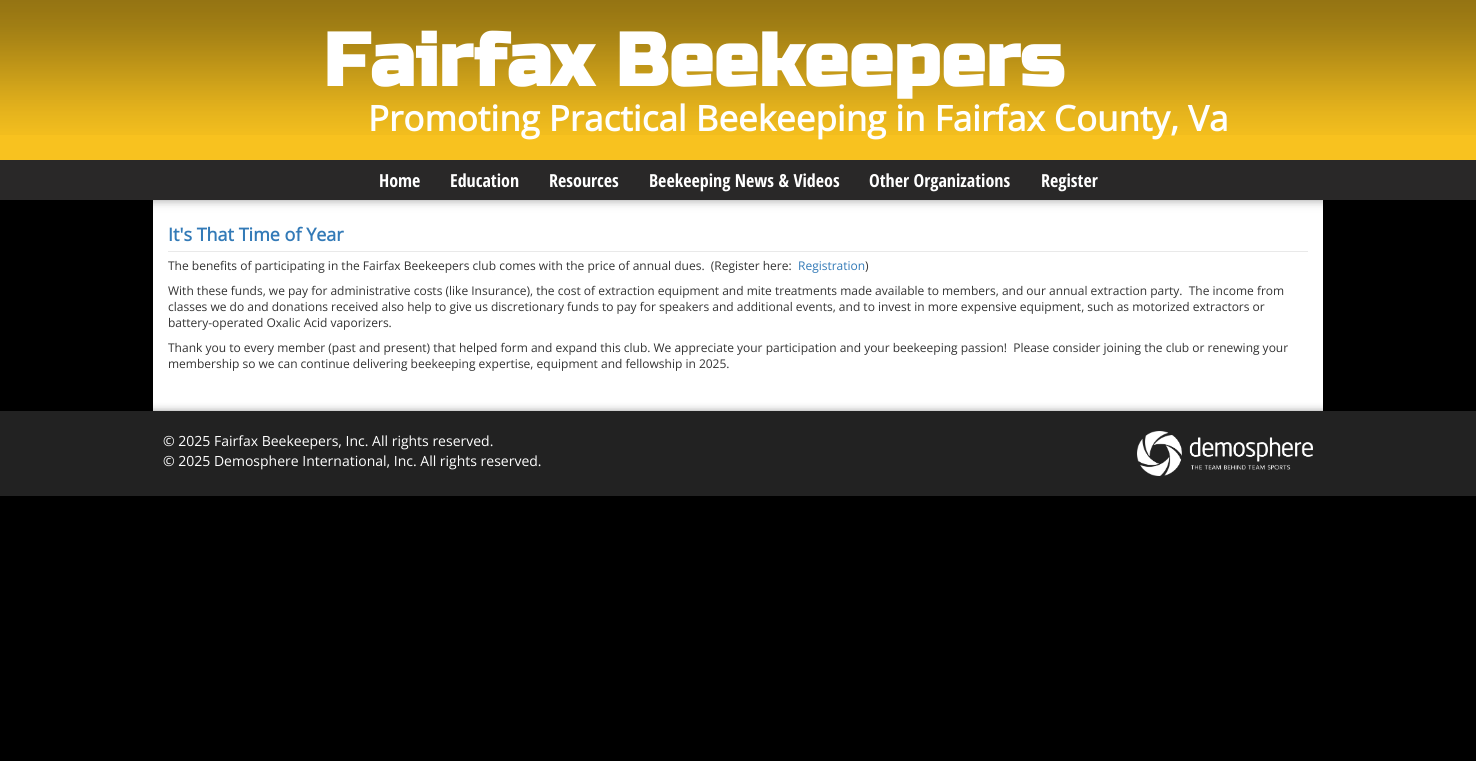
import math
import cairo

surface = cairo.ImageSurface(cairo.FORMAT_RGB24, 1476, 761)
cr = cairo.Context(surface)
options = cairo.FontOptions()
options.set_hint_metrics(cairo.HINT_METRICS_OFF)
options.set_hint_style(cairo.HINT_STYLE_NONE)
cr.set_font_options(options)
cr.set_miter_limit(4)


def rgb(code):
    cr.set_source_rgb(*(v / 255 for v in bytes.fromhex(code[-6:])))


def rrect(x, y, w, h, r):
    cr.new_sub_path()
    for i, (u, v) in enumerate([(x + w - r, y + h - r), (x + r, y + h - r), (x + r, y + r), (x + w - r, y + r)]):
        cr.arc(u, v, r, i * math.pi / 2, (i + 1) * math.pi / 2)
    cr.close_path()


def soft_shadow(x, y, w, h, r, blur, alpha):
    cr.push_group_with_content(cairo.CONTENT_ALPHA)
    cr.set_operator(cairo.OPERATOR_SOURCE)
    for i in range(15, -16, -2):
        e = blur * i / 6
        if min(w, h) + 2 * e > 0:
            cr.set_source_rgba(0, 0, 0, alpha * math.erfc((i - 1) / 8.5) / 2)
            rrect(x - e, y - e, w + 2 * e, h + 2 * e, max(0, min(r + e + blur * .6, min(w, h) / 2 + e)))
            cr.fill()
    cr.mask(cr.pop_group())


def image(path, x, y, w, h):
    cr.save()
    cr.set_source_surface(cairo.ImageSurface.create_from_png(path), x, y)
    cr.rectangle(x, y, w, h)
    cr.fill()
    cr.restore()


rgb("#000000")
cr.paint()
rgb("#ffffff")
cr.rectangle(153, 200, 1170, 211)
cr.fill()
rgb("#000000")
soft_shadow(0, 0, 1476, 200, 0, 5, 0.4)
rgb("#f8c21f")
cr.rectangle(0, 0, 1476, 160)
cr.fill()
image("img/1.png", 0, 0, 1476, 135)
rgb("#292828")
cr.rectangle(0, 160, 1476, 40)
cr.fill()
rgb("#e9e9e9")
cr.rectangle(168, 251, 1140, 1)
cr.fill()
rgb("#000000")
soft_shadow(0, 414, 1476, 85, 0, 5, 0.75)
rgb("#222222")
cr.rectangle(0, 411, 1476, 85)
cr.fill()
image("img/2.png", 1137, 431, 176, 45)
cr.select_font_face("Russo One", cairo.FONT_SLANT_NORMAL, cairo.FONT_WEIGHT_BOLD)
cr.set_font_size(75)
rgb("#ffffff")
cr.move_to(323, 86)
cr.show_text("Fairfax Beekeepers")
cr.select_font_face("Open Sans", cairo.FONT_SLANT_NORMAL, cairo.FONT_WEIGHT_BOLD)
cr.set_font_size(35)
cr.move_to(368, 131)
cr.show_text("Promoting Practical Beekeeping in Fairfax County, Va")
cr.select_font_face("Open Sans Condensed", cairo.FONT_SLANT_NORMAL, cairo.FONT_WEIGHT_BOLD)
cr.set_font_size(18)
for x, y, s in [
    (379, 187, "Home"),
    (450, 187, "Education"),
    (549, 187, "Resources"),
    (649, 187, "Beekeeping News & Videos"),
    (869, 187, "Other Organizations"),
    (1041, 187, "Register"),
]:
    cr.move_to(x, y)
    cr.show_text(s)
cr.select_font_face("Open Sans", cairo.FONT_SLANT_NORMAL, cairo.FONT_WEIGHT_BOLD)
rgb("#337ab7")
cr.move_to(168, 241)
cr.show_text("It's That Time of Year")
cr.select_font_face("Open Sans")
cr.set_font_size(12)
rgb("#333333")
cr.move_to(168, 270)
cr.show_text("The benefits of participating in the Fairfax Beekeepers club comes with the price of annual dues.  (Register here:")
rgb("#337ab7")
cr.move_to(798, 270)
cr.show_text("Registration")
rgb("#333333")
for x, y, s in [
    (865, 270, ")"),
    (168, 295, "With these funds, we pay for administrative costs (like Insurance), the cost of extraction equipment and mite treatments made available to members, and our annual extraction party.  The income from"),
    (168, 311, "classes we do and donations received also help to give us discretionary funds to pay for speakers and additional events, and to invest in more expensive equipment, such as motorized extractors or"),
    (168, 327, "battery-operated Oxalic Acid vaporizers."),
    (168, 352, "Thank you to every member (past and present) that helped form and expand this club. We appreciate your participation and your beekeeping passion!  Please consider joining the club or renewing your"),
    (168, 368, "membership so we can continue delivering beekeeping expertise, equipment and fellowship in 2025."),
]:
    cr.move_to(x, y)
    cr.show_text(s)
cr.set_font_size(14)
rgb("#ffffff")
cr.move_to(163, 446)
cr.show_text("© 2025 Fairfax Beekeepers, Inc. All rights reserved.")
cr.move_to(163, 466)
cr.show_text("© 2025 Demosphere International, Inc. All rights reserved.")
surface.write_to_png("page.png")
